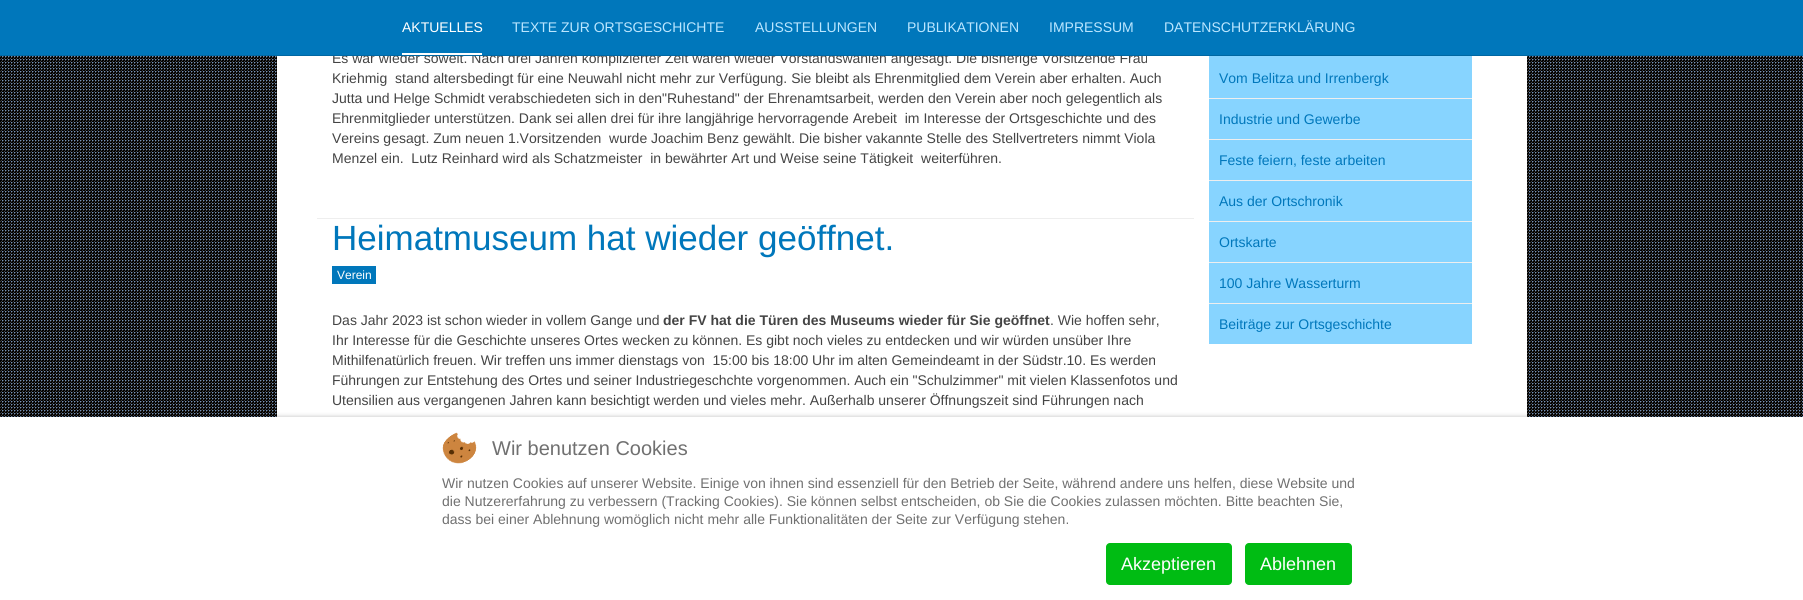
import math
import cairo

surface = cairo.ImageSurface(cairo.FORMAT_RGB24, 1803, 600)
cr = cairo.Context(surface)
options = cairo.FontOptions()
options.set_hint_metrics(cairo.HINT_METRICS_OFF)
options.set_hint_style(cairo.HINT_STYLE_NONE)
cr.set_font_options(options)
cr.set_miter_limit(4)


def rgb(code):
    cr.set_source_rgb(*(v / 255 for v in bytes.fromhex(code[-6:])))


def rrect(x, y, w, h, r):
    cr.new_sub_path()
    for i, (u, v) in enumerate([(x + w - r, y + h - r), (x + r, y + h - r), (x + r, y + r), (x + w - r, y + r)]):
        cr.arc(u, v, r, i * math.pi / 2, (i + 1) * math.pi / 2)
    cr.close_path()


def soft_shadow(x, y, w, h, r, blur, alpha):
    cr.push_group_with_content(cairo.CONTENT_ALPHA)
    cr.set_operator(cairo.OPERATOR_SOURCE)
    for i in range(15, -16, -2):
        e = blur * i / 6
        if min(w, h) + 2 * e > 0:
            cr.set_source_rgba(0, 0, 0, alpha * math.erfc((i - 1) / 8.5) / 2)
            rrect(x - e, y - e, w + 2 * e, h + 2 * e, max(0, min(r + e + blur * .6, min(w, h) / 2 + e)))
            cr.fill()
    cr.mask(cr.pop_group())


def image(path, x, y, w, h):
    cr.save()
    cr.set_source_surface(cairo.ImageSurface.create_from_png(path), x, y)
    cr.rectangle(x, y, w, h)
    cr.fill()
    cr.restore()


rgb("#ffffff")
cr.paint()
image("img/1.png", 0, 56, 1803, 361)
for x, y, w, h, color in [
    (277, 56, 1250, 361, "#ffffff"),
    (317, 218, 877, 1, "#eeeeee"),
    (332, 266, 44, 18, "#0077bb"),
    (1209, 56, 263, 288, "#87d4ff"),
    (1209, 98, 263, 1, "#eeeeee"),
    (1209, 139, 263, 1, "#eeeeee"),
    (1209, 180, 263, 1, "#eeeeee"),
    (1209, 221, 263, 1, "#eeeeee"),
    (1209, 262, 263, 1, "#eeeeee"),
    (1209, 303, 263, 1, "#eeeeee"),
]:
    rgb(color)
    cr.rectangle(x, y, w, h)
    cr.fill()
rgb("#000000")
soft_shadow(0, 417, 1803, 183, 0, 2.5, 0.25)
rgb("#ffffff")
cr.rectangle(0, 417, 1803, 183)
cr.fill()
image("img/2.png", 442, 432, 35, 32)
rgb("#00bc13")
rrect(1106, 543, 126, 42, 4)
cr.fill()
rrect(1245, 543, 107, 42, 4)
cr.fill()
cr.select_font_face("Liberation Sans")
cr.set_font_size(14)
rgb("#444444")
cr.move_to(332, 63)
cr.show_text("Es war wieder soweit. Nach drei Jahren komplizierter Zeit waren wieder Vorstandswahlen angesagt. Die bisherige Vorsitzende Frau")
rgb("#0077bb")
cr.rectangle(0, 0, 1803, 55)
cr.fill()
rgb("#bbe6ff")
for x, y, s in [
    (1164, 32, "DATENSCHUTZERKLÄRUNG"),
    (1049, 32, "IMPRESSUM"),
    (907, 32, "PUBLIKATIONEN"),
    (755, 32, "AUSSTELLUNGEN"),
    (512, 32, "TEXTE ZUR ORTSGESCHICHTE"),
]:
    cr.move_to(x, y)
    cr.show_text(s)
rgb("#ffffff")
cr.move_to(402, 32)
cr.show_text("AKTUELLES")
cr.rectangle(402, 53, 80, 2)
cr.fill()
rgb("#0067a2")
cr.rectangle(0, 55, 1803, 1)
cr.fill()
rgb("#444444")
for x, y, s in [
    (332, 83, "Kriehmig  stand altersbedingt für eine Neuwahl nicht mehr zur Verfügung. Sie bleibt als Ehrenmitglied dem Verein aber erhalten. Auch"),
    (332, 103, "Jutta und Helge Schmidt verabschiedeten sich in den\"Ruhestand\" der Ehrenamtsarbeit, werden den Verein aber noch gelegentlich als"),
    (332, 123, "Ehrenmitglieder unterstützen. Dank sei allen drei für ihre langjährige hervorragende Arebeit  im Interesse der Ortsgeschichte und des"),
    (332, 143, "Vereins gesagt. Zum neuen 1.Vorsitzenden  wurde Joachim Benz gewählt. Die bisher vakannte Stelle des Stellvertreters nimmt Viola"),
    (332, 163, "Menzel ein.  Lutz Reinhard wird als Schatzmeister  in bewährter Art und Weise seine Tätigkeit  weiterführen."),
]:
    cr.move_to(x, y)
    cr.show_text(s)
cr.set_font_size(35)
rgb("#0077bb")
cr.move_to(332, 250)
cr.show_text("Heimatmuseum hat wieder geöffnet.")
cr.set_font_size(12)
rgb("#ffffff")
cr.move_to(337, 279)
cr.show_text("Verein")
cr.set_font_size(14)
rgb("#444444")
cr.move_to(332, 325)
cr.show_text("Das Jahr 2023 ist schon wieder in vollem Gange und")
cr.select_font_face("Liberation Sans", cairo.FONT_SLANT_NORMAL, cairo.FONT_WEIGHT_BOLD)
cr.move_to(663, 325)
cr.show_text("der FV hat die Türen des Museums wieder für Sie geöffnet")
cr.select_font_face("Liberation Sans")
for x, y, s in [
    (1050, 325, ". Wie hoffen sehr,"),
    (332, 345, "Ihr Interesse für die Geschichte unseres Ortes wecken zu können. Es gibt noch vieles zu entdecken und wir würden unsüber Ihre"),
    (332, 365, "Mithilfenatürlich freuen. Wir treffen uns immer dienstags von  15:00 bis 18:00 Uhr im alten Gemeindeamt in der Südstr.10. Es werden"),
    (332, 385, "Führungen zur Entstehung des Ortes und seiner Industriegeschchte vorgenommen. Auch ein \"Schulzimmer\" mit vielen Klassenfotos und"),
    (332, 405, "Utensilien aus vergangenen Jahren kann besichtigt werden und vieles mehr. Außerhalb unserer Öffnungszeit sind Führungen nach"),
]:
    cr.move_to(x, y)
    cr.show_text(s)
rgb("#0077bb")
for x, y, s in [
    (1219, 83, "Vom Belitza und Irrenbergk"),
    (1219, 124, "Industrie und Gewerbe"),
    (1219, 165, "Feste feiern, feste arbeiten"),
    (1219, 206, "Aus der Ortschronik"),
    (1219, 247, "Ortskarte"),
    (1219, 288, "100 Jahre Wasserturm"),
    (1219, 329, "Beiträge zur Ortsgeschichte"),
]:
    cr.move_to(x, y)
    cr.show_text(s)
cr.set_font_size(20)
rgb("#707070")
cr.move_to(492, 455)
cr.show_text("Wir benutzen Cookies")
cr.set_font_size(14)
for x, y, s in [
    (442, 488, "Wir nutzen Cookies auf unserer Website. Einige von ihnen sind essenziell für den Betrieb der Seite, während andere uns helfen, diese Website und"),
    (442, 506, "die Nutzererfahrung zu verbessern (Tracking Cookies). Sie können selbst entscheiden, ob Sie die Cookies zulassen möchten. Bitte beachten Sie,"),
    (442, 524, "dass bei einer Ablehnung womöglich nicht mehr alle Funktionalitäten der Seite zur Verfügung stehen."),
]:
    cr.move_to(x, y)
    cr.show_text(s)
cr.set_font_size(18)
rgb("#ffffff")
cr.move_to(1121, 570)
cr.show_text("Akzeptieren")
cr.move_to(1260, 570)
cr.show_text("Ablehnen")
surface.write_to_png("page.png")
